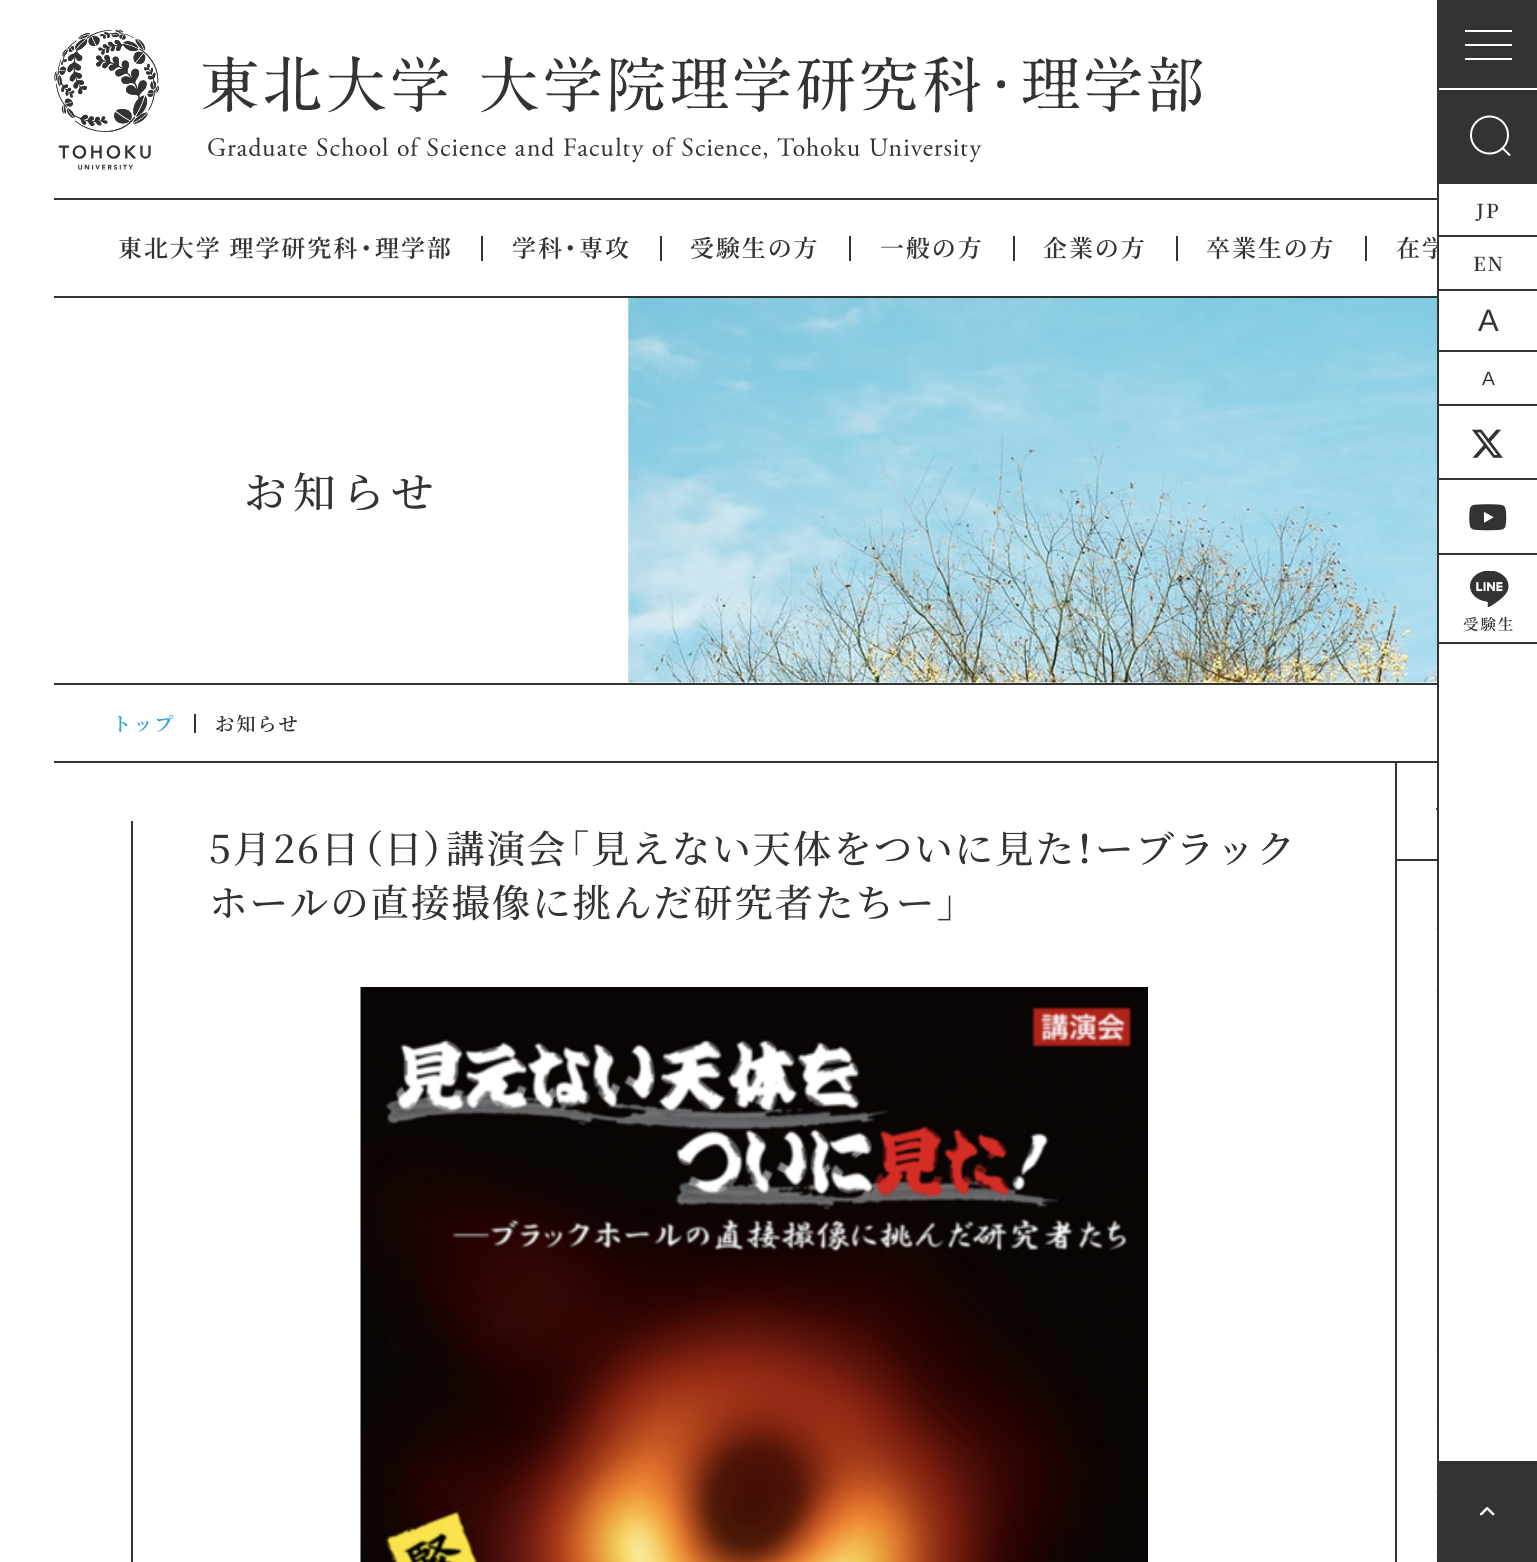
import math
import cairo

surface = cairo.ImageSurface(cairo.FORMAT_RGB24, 1537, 1562)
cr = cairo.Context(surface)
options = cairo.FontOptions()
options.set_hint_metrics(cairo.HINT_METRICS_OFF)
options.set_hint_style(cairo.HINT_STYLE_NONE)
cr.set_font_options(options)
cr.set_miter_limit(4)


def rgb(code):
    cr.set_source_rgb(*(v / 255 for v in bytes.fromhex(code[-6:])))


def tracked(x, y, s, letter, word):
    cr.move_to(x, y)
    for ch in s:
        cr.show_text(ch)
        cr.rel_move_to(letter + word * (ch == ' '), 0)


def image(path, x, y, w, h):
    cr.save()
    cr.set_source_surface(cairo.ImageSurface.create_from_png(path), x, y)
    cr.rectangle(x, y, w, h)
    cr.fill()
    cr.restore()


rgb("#ffffff")
cr.paint()
for x, y, w, h, color in [
    (1439, 0, 98, 88, "#333333"),
    (1465, 30, 47, 2, "#ffffff"),
    (1465, 44, 47, 2, "#ffffff"),
    (1465, 58, 47, 2, "#ffffff"),
]:
    rgb(color)
    cr.rectangle(x, y, w, h)
    cr.fill()
image("img/1.png", 54, 30, 1148, 140)
for x, y, w, h, color in [
    (54, 198, 1383, 2, "#333333"),
    (54, 296, 1383, 2, "#333333"),
    (481, 236, 2, 25, "#333333"),
    (660, 236, 2, 25, "#333333"),
    (849, 236, 2, 25, "#333333"),
    (1013, 236, 2, 25, "#333333"),
    (1176, 236, 2, 25, "#333333"),
    (1365, 236, 2, 25, "#333333"),
    (1437, 0, 2, 1461, "#333333"),
    (1439, 90, 98, 94, "#333333"),
]:
    rgb(color)
    cr.rectangle(x, y, w, h)
    cr.fill()
cr.arc(1489.5, 135, 18.5, 0, 2 * math.pi)
rgb("#ffffff")
cr.stroke()
cr.new_path()
cr.move_to(1502, 147.5)
cr.line_to(1510, 155.5)
cr.stroke()
for x, y, w, h, color in [
    (1439, 289, 98, 2, "#333333"),
    (1439, 350, 98, 2, "#333333"),
    (1439, 404, 98, 2, "#333333"),
    (1439, 478, 98, 2, "#333333"),
]:
    rgb(color)
    cr.rectangle(x, y, w, h)
    cr.fill()
image("img/2.png", 1472, 429, 31, 29)
cr.rectangle(1439, 553, 98, 2)
cr.fill()
image("img/3.png", 1469, 504, 38, 27)
cr.rectangle(1439, 642, 98, 2)
cr.fill()
image("img/4.png", 1470, 571, 39, 36)
cr.rectangle(1437, 1461, 100, 101)
cr.fill()
image("img/5.png", 1480, 1507, 15, 9)
cr.rectangle(54, 683, 1383, 2)
cr.fill()
image("img/6.png", 628, 298, 809, 385)
for x, y, w, h, color in [
    (54, 761, 1383, 2, "#333333"),
    (194, 714, 2, 19, "#333333"),
    (131, 821, 2, 741, "#333333"),
]:
    rgb(color)
    cr.rectangle(x, y, w, h)
    cr.fill()
image("img/7.png", 360, 987, 788, 575)
cr.rectangle(1395, 763, 2, 799)
cr.fill()
cr.rectangle(1397, 859, 40, 2)
cr.fill()
image("img/8.png", 1435, 808, 2, 3)
image("img/9.png", 1436, 919, 1, 10)
image("img/10.png", 1436, 991, 1, 10)
image("img/10.png", 1436, 1341, 1, 10)
image("img/11.png", 1436, 1413, 1, 10)
image("img/11.png", 1436, 1483, 1, 10)
image("img/12.png", 1436, 1554, 1, 2)
cr.select_font_face("Noto Serif JP SemiBold")
cr.set_font_size(24)
tracked(118, 257, "東北大学 理学研究科", 1.9, 0)
cr.select_font_face("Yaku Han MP", cairo.FONT_SLANT_NORMAL, cairo.FONT_WEIGHT_BOLD)
tracked(360, 257, "・", 1.9, 0)
cr.select_font_face("Noto Serif JP SemiBold")
tracked(375, 257, "理学部", 1.9, 0)
tracked(512, 257, "学科", 1.9, 0)
cr.select_font_face("Yaku Han MP", cairo.FONT_SLANT_NORMAL, cairo.FONT_WEIGHT_BOLD)
tracked(564, 257, "・", 1.9, 0)
cr.select_font_face("Noto Serif JP SemiBold")
for x, y, s in [
    (579, 257, "専攻"),
    (690, 257, "受験生の方"),
    (880, 257, "一般の方"),
    (1043, 257, "企業の方"),
    (1206, 257, "卒業生の方"),
    (1396, 257, "在学"),
]:
    tracked(x, y, s, 1.9, 0)
rgb("#ffffff")
cr.rectangle(1439, 236, 7, 16)
cr.fill()
rgb("#333333")
cr.rectangle(1439, 235, 98, 2)
cr.fill()
cr.set_font_size(19.25)
tracked(1476, 218, "JP", 1.9, 0)
tracked(1473, 271, "EN", 1.9, 0)
cr.select_font_face("Liberation Sans")
cr.set_font_size(31)
cr.move_to(1478, 331)
cr.show_text("A")
cr.set_font_size(19.25)
cr.move_to(1482, 385)
cr.show_text("A")
cr.select_font_face("Noto Serif JP SemiBold")
cr.set_font_size(15.5)
tracked(1463, 630, "受験生", 1.9, 0)
cr.select_font_face("Noto Serif JP Medium")
cr.set_font_size(42.5)
tracked(244, 508, "お知らせ", 6.5, 0)
cr.select_font_face("Noto Serif JP SemiBold")
cr.set_font_size(19.25)
rgb("#2ba4ce")
tracked(112, 731, "トップ", 1.9, 0)
rgb("#333333")
tracked(215, 731, "お知らせ", 1.9, 0)
cr.select_font_face("Noto Serif JP Medium")
cr.set_font_size(38.5)
tracked(209, 863, "5月26日", 1.9, 0)
cr.select_font_face("Yaku Han MP SemiBold")
tracked(362, 863, "（", 1.9, 0)
cr.select_font_face("Noto Serif JP Medium")
tracked(384, 863, "日", 1.9, 0)
cr.select_font_face("Yaku Han MP SemiBold")
tracked(424, 863, "）", 1.9, 0)
cr.select_font_face("Noto Serif JP Medium")
tracked(446, 863, "講演会", 1.9, 0)
cr.select_font_face("Yaku Han MP SemiBold")
tracked(568, 863, "「", 1.9, 0)
cr.select_font_face("Noto Serif JP Medium")
tracked(591, 863, "見えない天体をついに見た", 1.9, 0)
cr.select_font_face("Yaku Han MP SemiBold")
tracked(1076, 863, "！", 1.9, 0)
cr.select_font_face("Noto Serif JP Medium")
tracked(1095, 863, "ーブラック", 1.9, 0)
tracked(209, 917, "ホールの直接撮像に挑んだ研究者たちー", 1.9, 0)
cr.select_font_face("Yaku Han MP SemiBold")
tracked(937, 917, "」", 1.9, 0)
surface.write_to_png("page.png")
